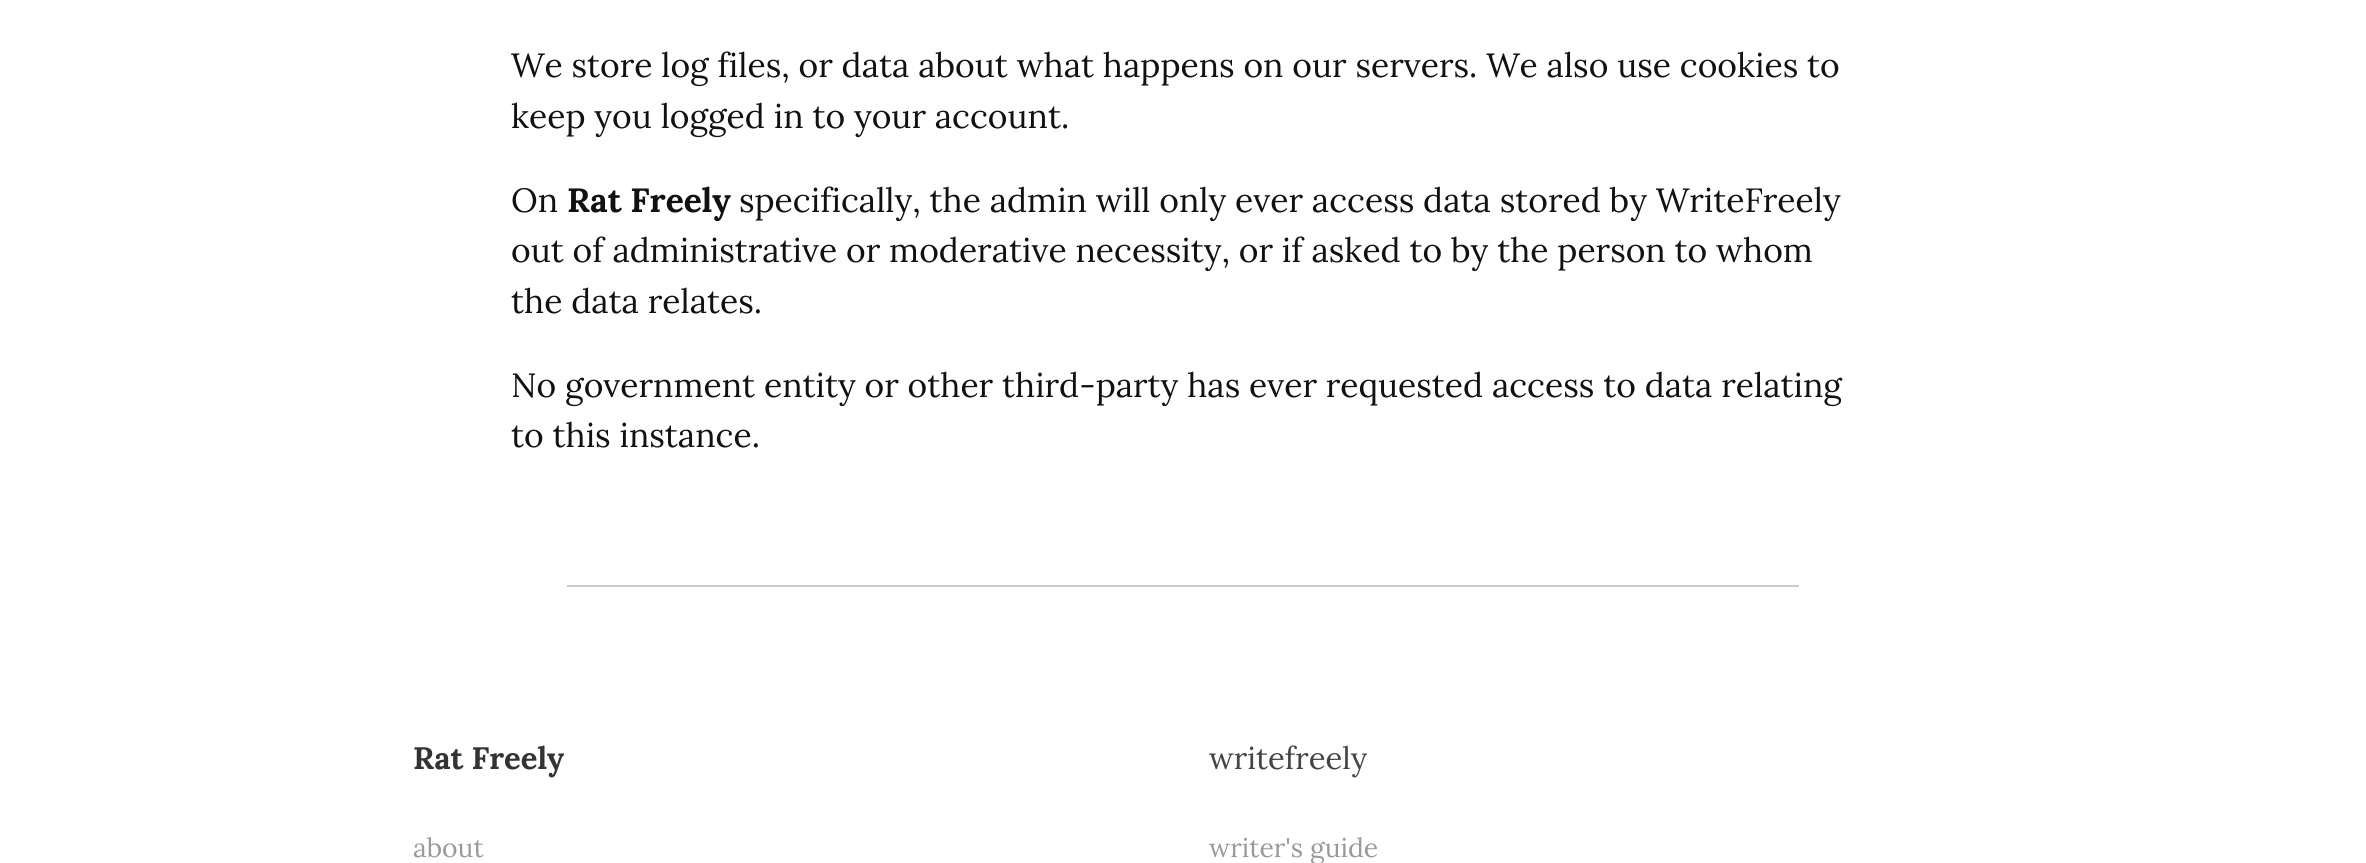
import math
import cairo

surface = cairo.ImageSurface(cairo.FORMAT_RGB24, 2366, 863)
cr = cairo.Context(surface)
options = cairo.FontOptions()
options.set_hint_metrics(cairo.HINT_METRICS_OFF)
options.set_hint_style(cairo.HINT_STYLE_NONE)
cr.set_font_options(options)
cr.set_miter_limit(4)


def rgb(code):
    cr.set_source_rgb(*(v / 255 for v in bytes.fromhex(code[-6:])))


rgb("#ffffff")
cr.paint()
rgb("#cccccc")
cr.rectangle(567, 585, 1232, 2)
cr.fill()
cr.select_font_face("Lora")
cr.set_font_size(33.6)
rgb("#111111")
for x, y, s in [
    (511, 77, "We store log files, or data about what happens on our servers. We also use cookies to"),
    (511, 128, "keep you logged in to your account."),
    (511, 212, "On"),
]:
    cr.move_to(x, y)
    cr.show_text(s)
cr.select_font_face("Lora", cairo.FONT_SLANT_NORMAL, cairo.FONT_WEIGHT_BOLD)
cr.move_to(567, 212)
cr.show_text("Rat Freely")
cr.select_font_face("Lora")
for x, y, s in [
    (739, 212, "specifically, the admin will only ever access data stored by WriteFreely"),
    (511, 262, "out of administrative or moderative necessity, or if asked to by the person to whom"),
    (511, 313, "the data relates."),
    (511, 397, "No government entity or other third-party has ever requested access to data relating"),
    (511, 447, "to this instance."),
]:
    cr.move_to(x, y)
    cr.show_text(s)
cr.select_font_face("Lora", cairo.FONT_SLANT_NORMAL, cairo.FONT_WEIGHT_BOLD)
cr.set_font_size(31)
rgb("#333333")
cr.move_to(413, 769)
cr.show_text("Rat Freely")
cr.select_font_face("Lora")
cr.set_font_size(26.5)
rgb("#999999")
cr.move_to(413, 857)
cr.show_text("about")
cr.set_font_size(31)
rgb("#444444")
cr.move_to(1209, 769)
cr.show_text("writefreely")
cr.set_font_size(26.5)
rgb("#999999")
cr.move_to(1209, 857)
cr.show_text("writer's guide")
surface.write_to_png("page.png")
